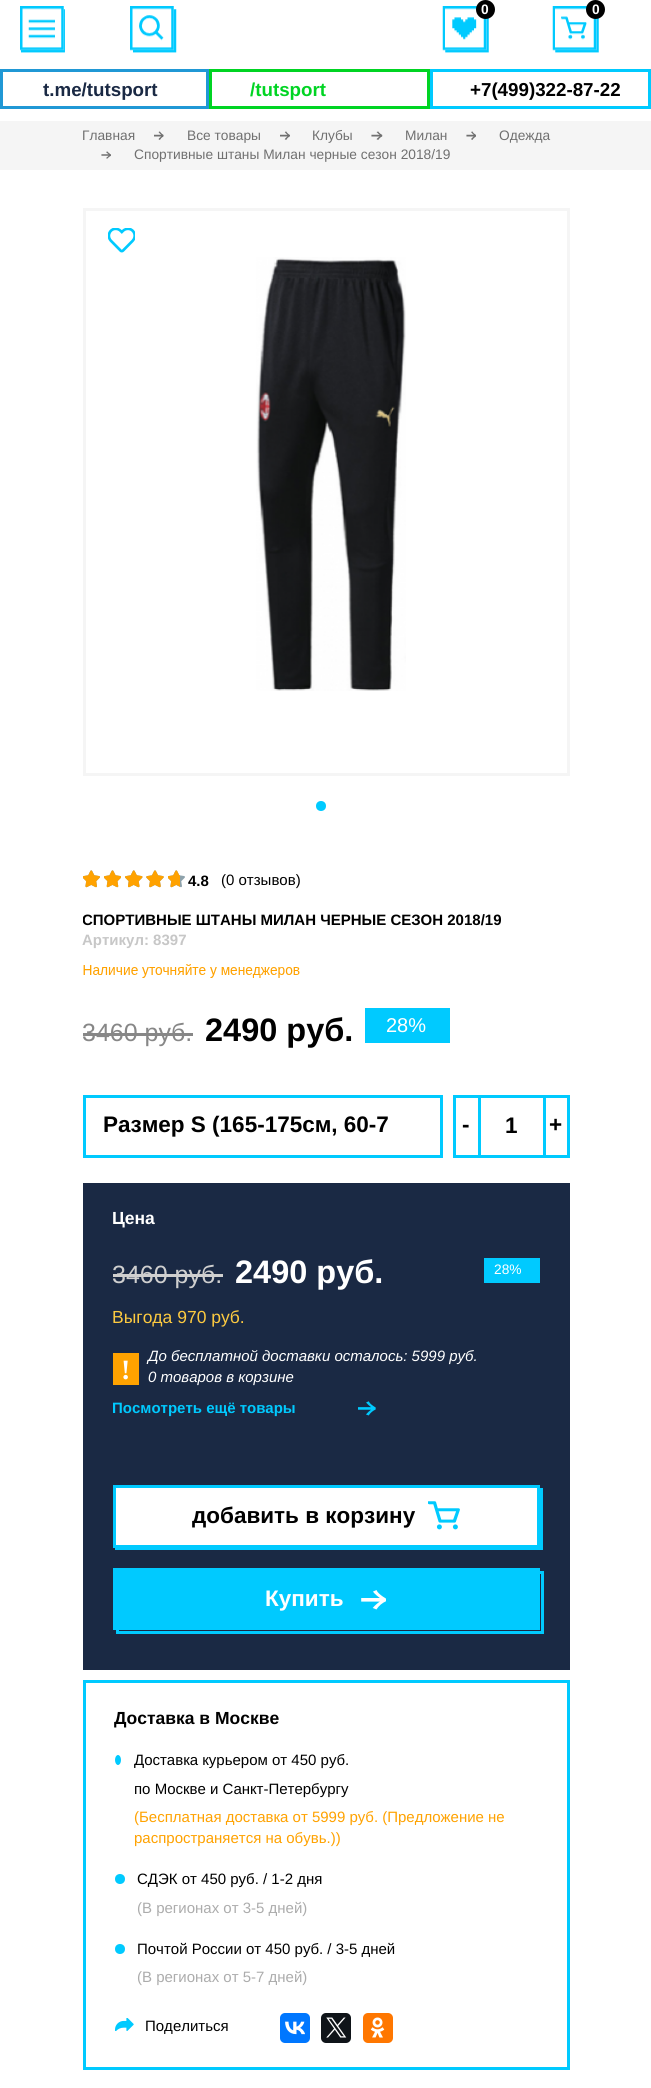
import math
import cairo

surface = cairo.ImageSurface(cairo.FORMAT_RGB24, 651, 2088)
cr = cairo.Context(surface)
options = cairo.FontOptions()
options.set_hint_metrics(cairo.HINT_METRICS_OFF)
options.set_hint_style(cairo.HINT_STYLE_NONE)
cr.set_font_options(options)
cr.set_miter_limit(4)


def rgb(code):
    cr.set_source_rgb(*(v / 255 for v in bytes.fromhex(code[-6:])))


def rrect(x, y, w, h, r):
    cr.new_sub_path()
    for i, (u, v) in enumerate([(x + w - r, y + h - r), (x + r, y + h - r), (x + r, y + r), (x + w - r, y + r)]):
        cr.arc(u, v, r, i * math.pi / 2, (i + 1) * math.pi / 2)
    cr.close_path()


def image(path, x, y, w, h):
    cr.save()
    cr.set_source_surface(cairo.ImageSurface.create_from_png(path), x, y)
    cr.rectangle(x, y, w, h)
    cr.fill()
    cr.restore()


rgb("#ffffff")
cr.paint()
image("img/1.png", 20, 6, 45, 47)
image("img/2.png", 130, 6, 47, 47)
image("img/3.png", 442, 6, 47, 47)
rgb("#000000")
cr.arc(485.5, 9.5, 9.5, 0, 2 * math.pi)
cr.fill()
image("img/4.png", 552, 6, 47, 47)
cr.arc(595.5, 9.5, 9.5, 0, 2 * math.pi)
cr.fill()
cr.rectangle(1.5, 70.5, 206, 37)
rgb("#2098d5")
cr.set_line_width(3)
cr.stroke()
cr.rectangle(210.5, 70.5, 218, 37)
rgb("#00d423")
cr.stroke()
cr.rectangle(431.5, 70.5, 218, 37)
rgb("#00caff")
cr.stroke()
rgb("#f5f5f5")
cr.rectangle(0, 121, 651, 49)
cr.fill()
image("img/5.png", 154, 131, 10, 9)
image("img/6.png", 280, 131, 10, 9)
image("img/7.png", 371, 131, 12, 9)
image("img/8.png", 466, 131, 10, 9)
image("img/9.png", 101, 151, 10, 8)
cr.rectangle(84.5, 209.5, 484, 565)
cr.stroke()
image("img/10.png", 256, 257, 150, 434)
image("img/11.png", 108, 228, 27, 25)
rgb("#00caff")
cr.arc(321, 806, 5, 0, 2 * math.pi)
cr.fill()
image("img/12.png", 83, 870, 17, 18)
image("img/13.png", 83, 870, 17, 18)
image("img/18.png", 104, 870, 17, 18)
image("img/14.png", 104, 870, 17, 18)
image("img/19.png", 125, 870, 18, 18)
image("img/15.png", 125, 870, 18, 18)
image("img/20.png", 146, 870, 18, 18)
image("img/16.png", 146, 870, 18, 18)
image("img/12.png", 168, 870, 17, 18)
image("img/17.png", 168, 870, 12, 18)
image("img/21.png", 83, 964, 217, 14)
rgb("#878787")
cr.rectangle(83, 1033, 110, 3)
cr.fill()
rgb("#00caff")
cr.rectangle(365, 1008, 85, 35)
cr.fill()
cr.rectangle(84.5, 1096.5, 357, 60)
cr.stroke()
cr.rectangle(454.5, 1096.5, 114, 60)
cr.stroke()
for x, y, w, h, color in [
    (478, 1098, 3, 57, "#00caff"),
    (543, 1098, 3, 57, "#00caff"),
    (83, 1183, 487, 487, "#1a2944"),
    (113, 1274, 110, 3, "#cfcfcf"),
    (484, 1258, 56, 25, "#00caff"),
    (113, 1353, 26, 32, "#ffa200"),
]:
    rgb(color)
    cr.rectangle(x, y, w, h)
    cr.fill()
image("img/22.png", 358, 1401, 18, 15)
rgb("#00caff")
cr.new_path()
cr.move_to(115, 1548)
cr.line_to(115, 1550)
cr.line_to(543, 1550)
cr.line_to(543, 1488)
cr.line_to(540, 1488)
cr.line_to(540, 1548)
cr.close_path()
cr.fill()
rgb("#ffffff")
cr.rectangle(114.5, 1486.5, 424, 60)
cr.fill_preserve()
rgb("#00caff")
cr.stroke()
image("img/23.png", 428, 1501, 32, 29)
cr.rectangle(113, 1568, 427, 62)
cr.fill()
image("img/24.png", 361, 1590, 25, 20)
cr.rectangle(117.5, 1572.5, 425, 60)
cr.stroke()
cr.rectangle(84.5, 1681.5, 484, 387)
cr.stroke()
cr.new_path()
cr.move_to(118, 1755)
cr.curve_to(119.5, 1755, 121, 1757, 121, 1760)
cr.curve_to(121, 1763, 119.5, 1765, 118, 1765)
cr.curve_to(116.5, 1765, 115, 1763, 115, 1760)
cr.curve_to(115, 1757, 116.5, 1755, 118, 1755)
cr.close_path()
cr.fill()
cr.arc(120, 1879, 5, 0, 2 * math.pi)
cr.fill()
cr.arc(120, 1949, 5, 0, 2 * math.pi)
cr.fill()
image("img/25.png", 115, 2018, 19, 13)
rgb("#0077ff")
rrect(280, 2013, 30, 30, 5)
cr.fill()
image("img/26.png", 285, 2021, 20, 14)
rgb("#0f1419")
rrect(321, 2013, 30, 30, 5)
cr.fill()
image("img/27.png", 326, 2017, 21, 21)
rgb("#ff7700")
rrect(363, 2013, 30, 30, 5)
cr.fill()
image("img/28.png", 370, 2017, 15, 21)
cr.select_font_face("Liberation Sans", cairo.FONT_SLANT_NORMAL, cairo.FONT_WEIGHT_BOLD)
cr.set_font_size(13.75)
rgb("#ffffff")
cr.move_to(481, 14)
cr.show_text("0")
cr.move_to(592, 14)
cr.show_text("0")
cr.set_font_size(18.75)
rgb("#1a2944")
cr.move_to(43, 96)
cr.show_text("t.me/tutsport")
rgb("#00d423")
cr.move_to(250, 96)
cr.show_text("/tutsport")
rgb("#000000")
cr.move_to(470, 96)
cr.show_text("+7(499)322-87-22")
cr.select_font_face("Liberation Sans")
cr.set_font_size(13.75)
rgb("#707070")
for x, y, s in [
    (82, 140, "Главная"),
    (187, 140, "Все товары"),
    (312, 140, "Клубы"),
    (405, 140, "Милан"),
    (499, 140, "Одежда"),
    (134, 159, "Спортивные штаны Милан черные сезон 2018/19"),
]:
    cr.move_to(x, y)
    cr.show_text(s)
cr.select_font_face("Liberation Sans", cairo.FONT_SLANT_NORMAL, cairo.FONT_WEIGHT_BOLD)
cr.set_font_size(15)
rgb("#000000")
cr.move_to(188, 886)
cr.show_text("4.8")
cr.select_font_face("Liberation Sans")
cr.move_to(221, 885)
cr.show_text("(0 отзывов)")
cr.save()
cr.rectangle(83, 869, 487, 289)
cr.clip()
cr.select_font_face("Liberation Sans", cairo.FONT_SLANT_NORMAL, cairo.FONT_WEIGHT_BOLD)
cr.move_to(82, 925)
cr.show_text("СПОРТИВНЫЕ ШТАНЫ МИЛАН ЧЕРНЫЕ СЕЗОН 2018/19")
cr.restore()
cr.select_font_face("Liberation Sans", cairo.FONT_SLANT_NORMAL, cairo.FONT_WEIGHT_BOLD)
rgb("#c7c7c7")
cr.move_to(82, 945)
cr.show_text("Артикул: 8397")
cr.select_font_face("Liberation Sans")
cr.set_font_size(25)
rgb("#878787")
cr.move_to(82, 1041)
cr.show_text("3460 руб.")
cr.select_font_face("Liberation Sans", cairo.FONT_SLANT_NORMAL, cairo.FONT_WEIGHT_BOLD)
cr.set_font_size(32.5)
rgb("#000000")
cr.move_to(205, 1041)
cr.show_text("2490 руб.")
cr.select_font_face("Liberation Sans")
cr.set_font_size(20)
rgb("#ffffff")
cr.move_to(386, 1032)
cr.show_text("28%")
cr.select_font_face("Liberation Sans", cairo.FONT_SLANT_NORMAL, cairo.FONT_WEIGHT_BOLD)
cr.set_font_size(22.5)
rgb("#000000")
for x, y, s in [
    (103, 1132, "Размер S (165-175см, 60-7"),
    (462, 1132, "-"),
    (505, 1133, "1"),
    (549, 1132, "+"),
]:
    cr.move_to(x, y)
    cr.show_text(s)
cr.set_font_size(17.5)
rgb("#ffffff")
cr.move_to(112, 1224)
cr.show_text("Цена")
cr.select_font_face("Liberation Sans")
cr.set_font_size(25)
rgb("#cfcfcf")
cr.move_to(112, 1283)
cr.show_text("3460 руб.")
cr.select_font_face("Liberation Sans", cairo.FONT_SLANT_NORMAL, cairo.FONT_WEIGHT_BOLD)
cr.set_font_size(32.5)
rgb("#ffffff")
cr.move_to(235, 1283)
cr.show_text("2490 руб.")
cr.select_font_face("Liberation Sans")
cr.set_font_size(13.75)
cr.move_to(494, 1274)
cr.show_text("28%")
cr.set_font_size(17.5)
rgb("#fdca40")
cr.move_to(112, 1323)
cr.show_text("Выгода 970 руб.")
cr.select_font_face("Liberation Serif", cairo.FONT_SLANT_NORMAL, cairo.FONT_WEIGHT_BOLD)
cr.set_font_size(28)
rgb("#ffffff")
cr.move_to(121, 1379)
cr.show_text("!")
cr.select_font_face("Liberation Sans", cairo.FONT_SLANT_ITALIC)
cr.set_font_size(15)
cr.move_to(148, 1361)
cr.show_text("До бесплатной доставки осталось: 5999 руб.")
cr.move_to(148, 1382)
cr.show_text("0 товаров в корзине")
cr.select_font_face("Liberation Sans", cairo.FONT_SLANT_NORMAL, cairo.FONT_WEIGHT_BOLD)
rgb("#00caff")
cr.move_to(112, 1413)
cr.show_text("Посмотреть ещё товары")
cr.set_font_size(22.5)
rgb("#000000")
cr.move_to(192, 1523)
cr.show_text("добавить в корзину")
rgb("#ffffff")
cr.move_to(265, 1606)
cr.show_text("Купить")
cr.set_font_size(17.5)
rgb("#000000")
cr.move_to(114, 1724)
cr.show_text("Доставка в Москве")
cr.select_font_face("Liberation Sans")
cr.set_font_size(15)
cr.move_to(134, 1765)
cr.show_text("Доставка курьером от 450 руб.")
cr.move_to(134, 1794)
cr.show_text("по Москве и Санкт-Петербургу")
rgb("#ffa200")
cr.move_to(134, 1822)
cr.show_text("(Бесплатная доставка от 5999 руб. (Предложение не")
cr.move_to(134, 1843)
cr.show_text("распространяется на обувь.))")
rgb("#000000")
cr.move_to(137, 1884)
cr.show_text("СДЭК от 450 руб. / 1-2 дня")
rgb("#acacac")
cr.move_to(137, 1913)
cr.show_text("(В регионах от 3-5 дней)")
rgb("#000000")
cr.move_to(137, 1954)
cr.show_text("Почтой России от 450 руб. / 3-5 дней")
rgb("#acacac")
cr.move_to(137, 1982)
cr.show_text("(В регионах от 5-7 дней)")
rgb("#000000")
cr.move_to(145, 2031)
cr.show_text("Поделиться")
surface.write_to_png("page.png")
